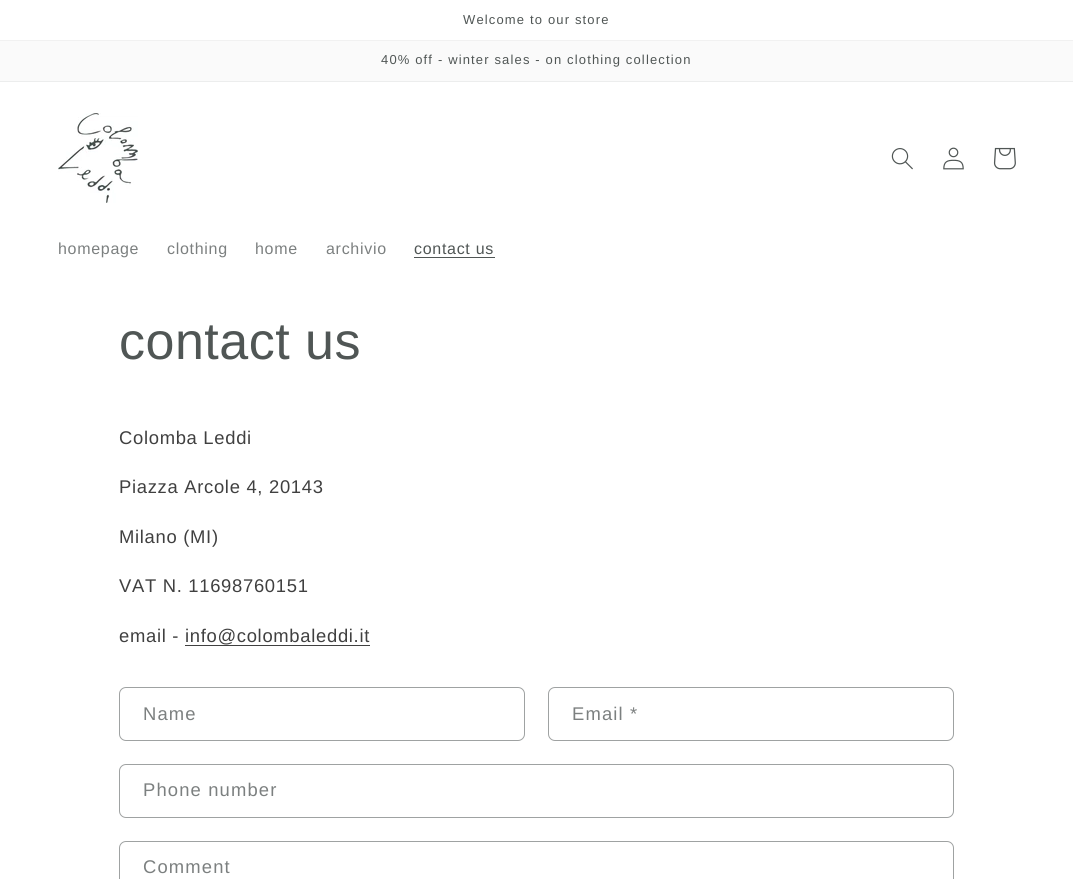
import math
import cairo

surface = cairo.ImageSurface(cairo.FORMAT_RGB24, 1073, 879)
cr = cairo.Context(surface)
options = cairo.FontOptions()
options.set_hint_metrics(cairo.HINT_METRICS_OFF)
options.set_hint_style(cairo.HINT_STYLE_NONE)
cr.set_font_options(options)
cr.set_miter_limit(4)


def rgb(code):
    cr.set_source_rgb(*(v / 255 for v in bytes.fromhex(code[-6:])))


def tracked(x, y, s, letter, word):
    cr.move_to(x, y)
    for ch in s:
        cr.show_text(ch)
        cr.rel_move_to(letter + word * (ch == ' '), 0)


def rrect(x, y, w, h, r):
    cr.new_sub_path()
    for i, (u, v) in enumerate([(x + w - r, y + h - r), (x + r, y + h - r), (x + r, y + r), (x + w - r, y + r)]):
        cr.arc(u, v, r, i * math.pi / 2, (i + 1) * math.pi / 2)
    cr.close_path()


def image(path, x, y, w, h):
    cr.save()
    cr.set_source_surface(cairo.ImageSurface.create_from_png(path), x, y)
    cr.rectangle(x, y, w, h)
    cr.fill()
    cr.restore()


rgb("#ffffff")
cr.paint()
for x, y, w, h, color in [
    (0, 40, 1073, 1, "#f1f1f1"),
    (0, 41, 1073, 40, "#fafafa"),
    (0, 81, 1073, 1, "#eceded"),
]:
    rgb(color)
    cr.rectangle(x, y, w, h)
    cr.fill()
image("img/1.png", 58, 113, 80, 90)
image("img/2.png", 891, 148, 22, 22)
image("img/3.png", 943, 147, 21, 23)
image("img/4.png", 993, 147, 23, 23)
rgb("#505655")
cr.rectangle(414, 257, 81, 1)
cr.fill()
rgb("#404040")
cr.rectangle(185, 645, 185, 1)
cr.fill()
rrect(119.5, 687.5, 405, 53, 6.5)
rgb("#9fa2a2")
cr.set_line_width(1)
cr.stroke()
rrect(548.5, 687.5, 405, 53, 6.5)
cr.stroke()
rrect(119.5, 764.5, 834, 53, 6.5)
cr.stroke()
rrect(119.5, 841.5, 834, 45, 6.5)
cr.stroke()
cr.select_font_face("Liberation Sans")
cr.set_font_size(13)
rgb("#505655")
tracked(463, 24, "Welcome to our store", 1.15, 0)
tracked(381, 64, "40% off - winter sales - on clothing collection", 1.15, 0)
cr.set_font_size(16)
rgb("#7c8080")
for x, y, s in [
    (58, 254, "homepage"),
    (167, 254, "clothing"),
    (255, 254, "home"),
    (326, 254, "archivio"),
]:
    tracked(x, y, s, 0.7, 0)
rgb("#505655")
tracked(414, 254, "contact us", 0.7, 0)
cr.set_font_size(52)
tracked(119, 359, "contact us", 0.5, 0)
cr.set_font_size(18.4)
rgb("#404040")
for x, y, s in [
    (119, 444, "Colomba Leddi"),
    (119, 493, "Piazza Arcole 4, 20143"),
    (119, 543, "Milano (MI)"),
    (119, 592, "VAT N. 11698760151"),
    (119, 642, "email - info@colombaleddi.it"),
]:
    tracked(x, y, s, 0.7, 0)
rgb("#7c8080")
for x, y, s in [
    (143, 720, "Name"),
    (572, 720, "Email *"),
    (143, 796, "Phone number"),
    (143, 873, "Comment"),
]:
    tracked(x, y, s, 1.15, 0)
surface.write_to_png("page.png")
